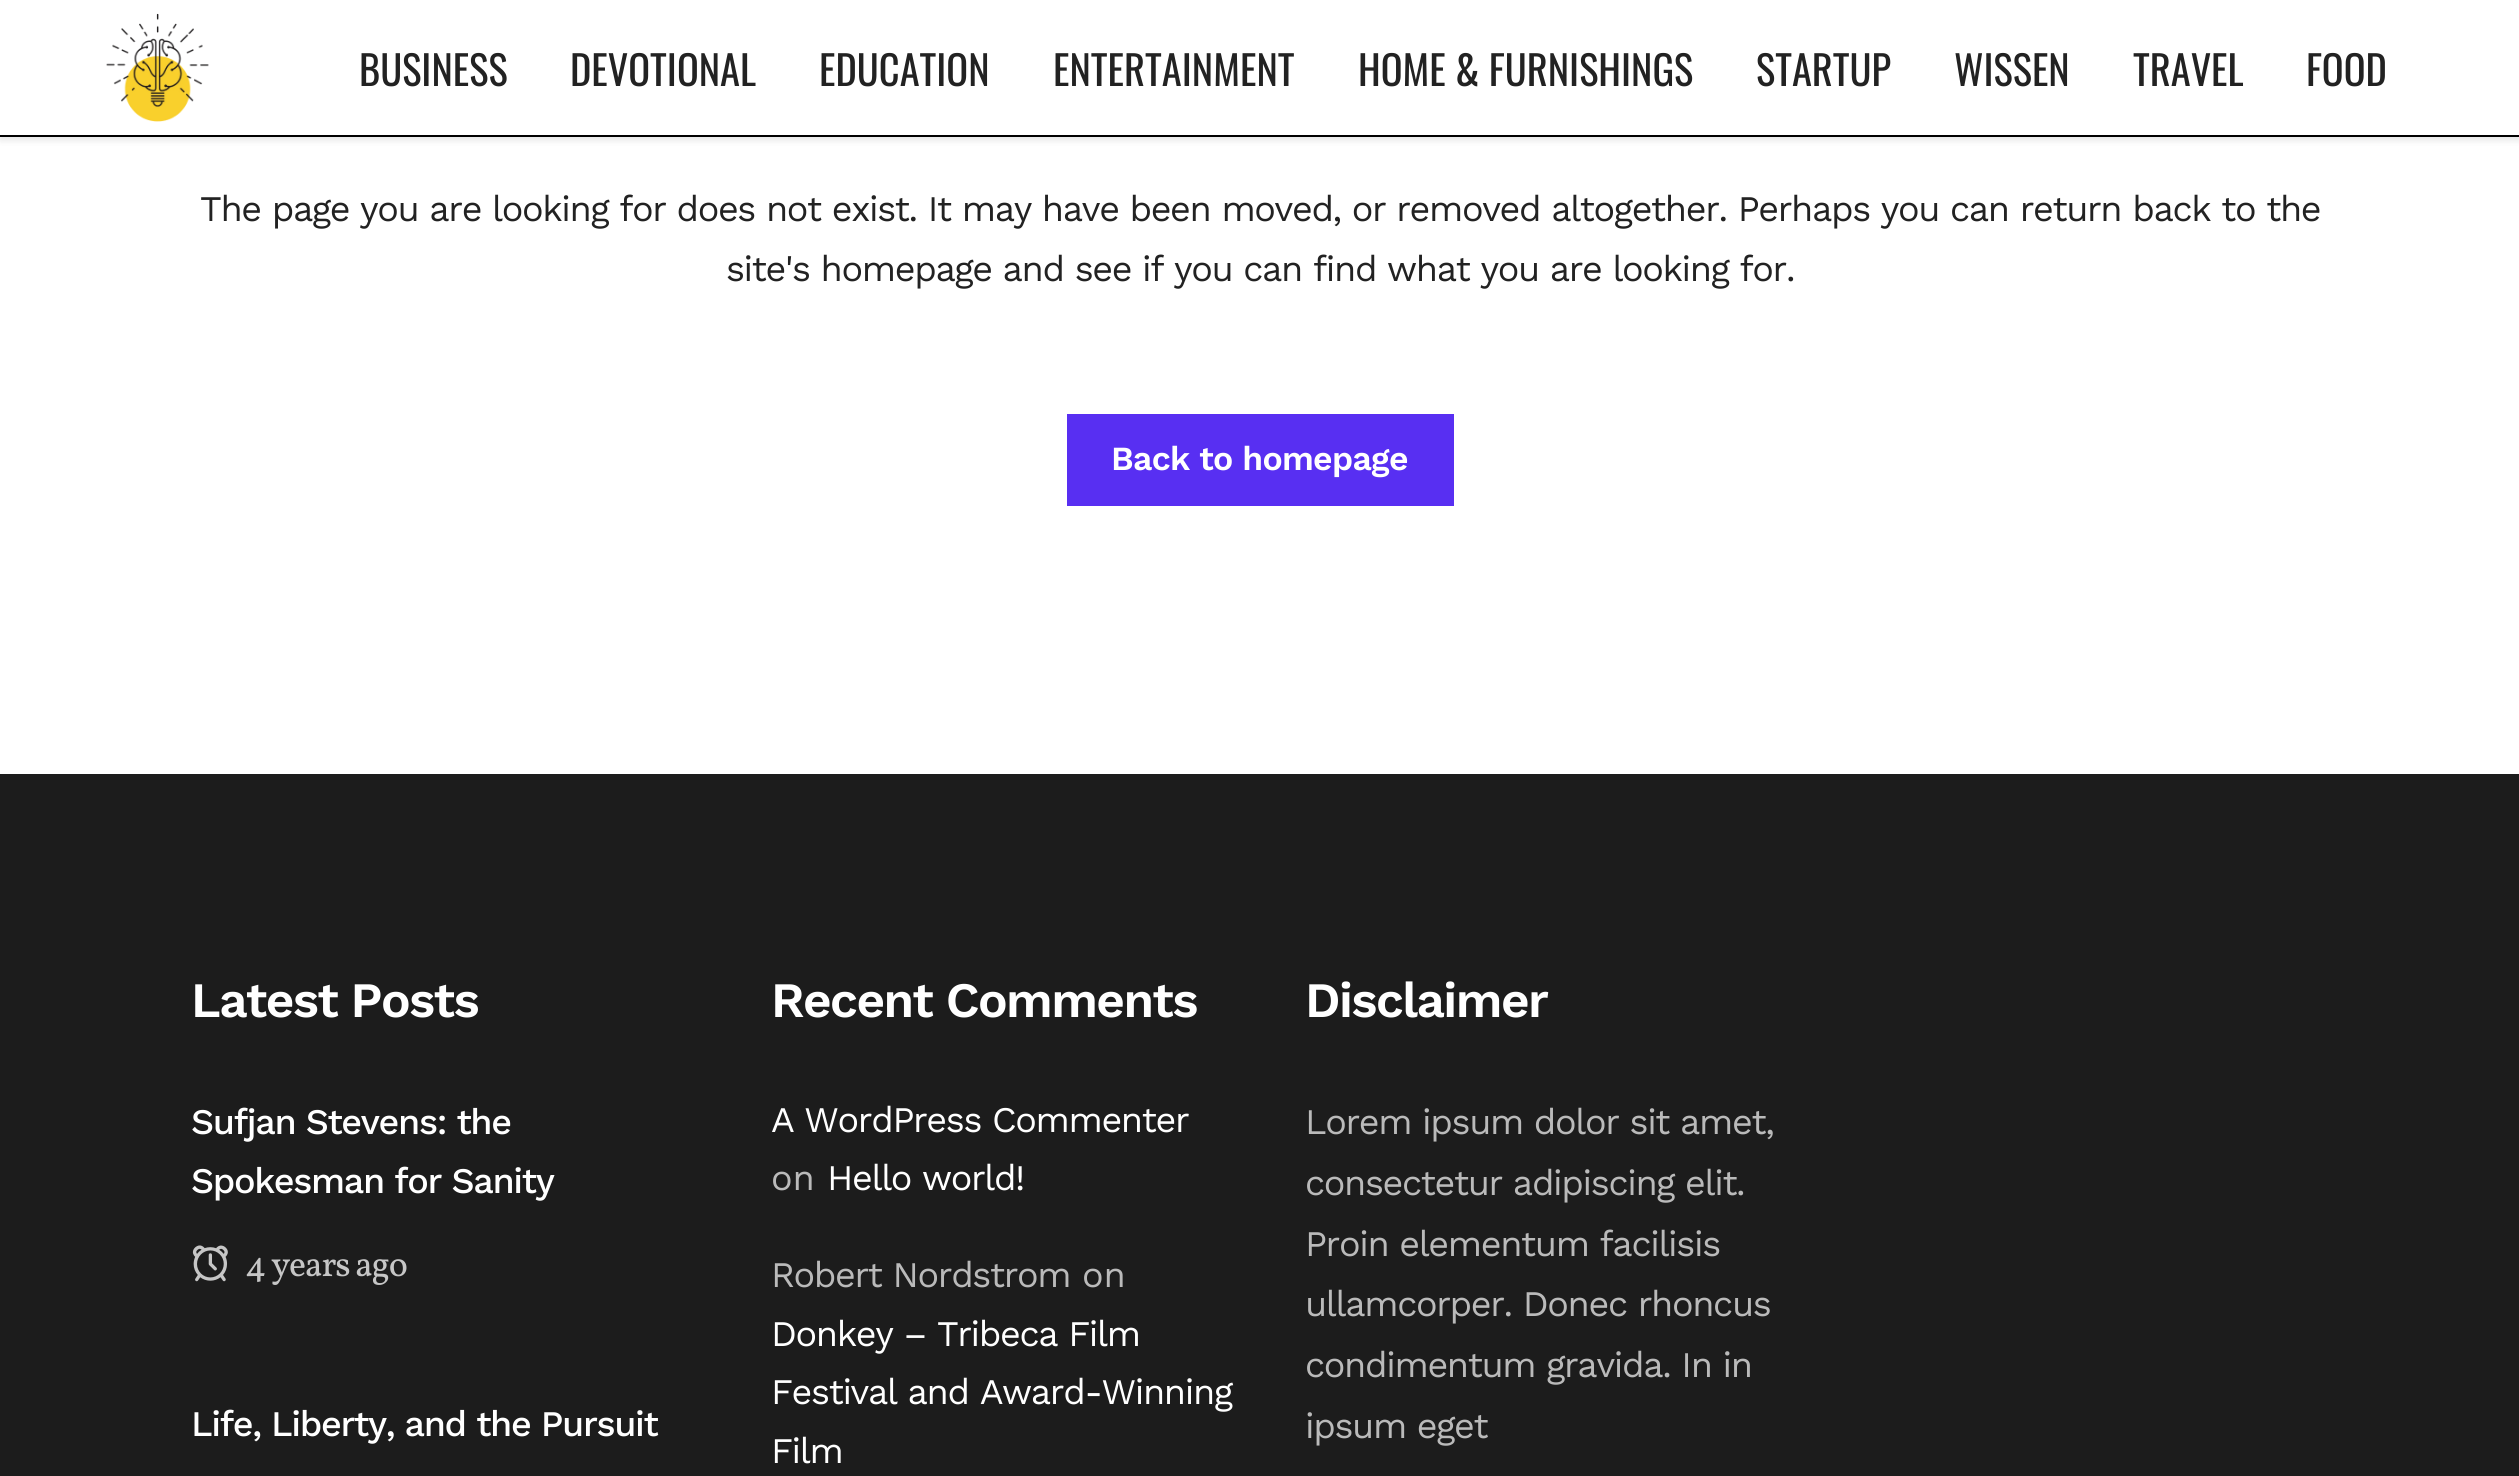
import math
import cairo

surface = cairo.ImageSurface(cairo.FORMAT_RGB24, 2519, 1476)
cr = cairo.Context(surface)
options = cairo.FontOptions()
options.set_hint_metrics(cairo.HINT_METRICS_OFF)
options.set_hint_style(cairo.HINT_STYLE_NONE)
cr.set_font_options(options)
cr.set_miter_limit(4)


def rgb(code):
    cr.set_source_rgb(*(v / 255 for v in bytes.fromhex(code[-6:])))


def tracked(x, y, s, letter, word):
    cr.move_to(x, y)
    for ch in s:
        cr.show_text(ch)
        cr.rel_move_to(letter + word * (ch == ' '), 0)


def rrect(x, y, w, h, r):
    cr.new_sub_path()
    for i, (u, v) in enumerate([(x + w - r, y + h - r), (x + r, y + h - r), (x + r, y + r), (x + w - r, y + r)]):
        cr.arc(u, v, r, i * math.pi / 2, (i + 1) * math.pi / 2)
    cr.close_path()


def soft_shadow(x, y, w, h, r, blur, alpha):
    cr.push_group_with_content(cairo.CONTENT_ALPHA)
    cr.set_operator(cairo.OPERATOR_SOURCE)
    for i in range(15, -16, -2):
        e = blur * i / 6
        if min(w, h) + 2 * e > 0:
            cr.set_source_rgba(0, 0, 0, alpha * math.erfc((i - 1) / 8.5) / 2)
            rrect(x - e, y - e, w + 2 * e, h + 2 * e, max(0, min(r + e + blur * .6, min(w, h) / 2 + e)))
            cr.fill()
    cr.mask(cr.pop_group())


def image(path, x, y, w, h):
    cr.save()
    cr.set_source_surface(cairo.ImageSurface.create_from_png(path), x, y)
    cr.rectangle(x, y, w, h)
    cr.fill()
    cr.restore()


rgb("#ffffff")
cr.paint()
rgb("#000000")
soft_shadow(0, 2, 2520, 138, 0, 3.5, 0.11)
rgb("#ffffff")
cr.rectangle(0, 0, 2519, 135)
cr.fill()
rgb("#000000")
cr.rectangle(0, 135, 2519, 2)
cr.fill()
image("img/1.png", 106, 13, 103, 109)
rgb("#582ff2")
cr.rectangle(1067, 414, 387, 92)
cr.fill()
rgb("#1c1c1c")
cr.rectangle(0, 774, 2519, 702)
cr.fill()
image("img/2.png", 192, 1245, 36, 37)
cr.select_font_face("Oswald")
cr.set_font_size(40.5)
rgb("#222222")
for x, y, s in [
    (359, 86, "BUSINESS"),
    (570, 86, "DEVOTIONAL"),
    (819, 86, "EDUCATION"),
    (1053, 86, "ENTERTAINMENT"),
    (1358, 86, "HOME & FURNISHINGS"),
    (1756, 86, "STARTUP"),
    (1954, 86, "WISSEN"),
    (2133, 86, "TRAVEL"),
    (2306, 86, "FOOD"),
]:
    cr.move_to(x, y)
    cr.show_text(s)
cr.select_font_face("Work Sans")
cr.set_font_size(36)
tracked(200, 221, "The page you are looking for does not exist. It may have been moved, or removed altogether. Perhaps you can return back to the", -1.35, 0)
tracked(726, 281, "site's homepage and see if you can find what you are looking for.", -1.35, 0)
cr.select_font_face("Work Sans SemiBold")
cr.set_font_size(33.75)
rgb("#ffffff")
tracked(1111, 470, "Back to homepage", -0.7, 0)
cr.set_font_size(49.5)
tracked(191, 1017, "Latest Posts", -1.6, 0)
cr.select_font_face("Work Sans Medium")
cr.set_font_size(36)
tracked(191, 1134, "Sufjan Stevens: the", -1.35, 0)
tracked(191, 1193, "Spokesman for Sanity", -1.35, 0)
cr.select_font_face("Vollkorn")
rgb("#c6c6c6")
tracked(245, 1276, "4 years ago", -1.35, 0)
cr.select_font_face("Work Sans Medium")
rgb("#ffffff")
tracked(191, 1436, "Life, Liberty, and the Pursuit", -1.35, 0)
cr.select_font_face("Work Sans SemiBold")
cr.set_font_size(49.5)
tracked(771, 1017, "Recent Comments", -1.6, 0)
cr.select_font_face("Work Sans")
cr.set_font_size(36)
tracked(771, 1132, "A WordPress Commenter", -1.35, 0)
rgb("#bababa")
cr.move_to(771, 1190)
cr.show_text("on")
rgb("#ffffff")
tracked(827, 1190, "Hello world!", -1.35, 0)
rgb("#bababa")
tracked(771, 1287, "Robert Nordstrom", -1.35, 0)
cr.move_to(1082, 1287)
cr.show_text("on")
rgb("#ffffff")
for x, y, s in [
    (771, 1346, "Donkey – Tribeca Film"),
    (771, 1404, "Festival and Award-Winning"),
    (771, 1463, "Film"),
]:
    tracked(x, y, s, -1.35, 0)
cr.select_font_face("Work Sans SemiBold")
cr.set_font_size(49.5)
tracked(1305, 1017, "Disclaimer", -1.6, 0)
cr.select_font_face("Work Sans")
cr.set_font_size(36)
rgb("#bababa")
for x, y, s in [
    (1305, 1134, "Lorem ipsum dolor sit amet,"),
    (1305, 1195, "consectetur adipiscing elit."),
    (1305, 1256, "Proin elementum facilisis"),
    (1305, 1316, "ullamcorper. Donec rhoncus"),
    (1305, 1377, "condimentum gravida. In in"),
    (1305, 1438, "ipsum eget"),
]:
    tracked(x, y, s, -1.35, 0)
surface.write_to_png("page.png")
